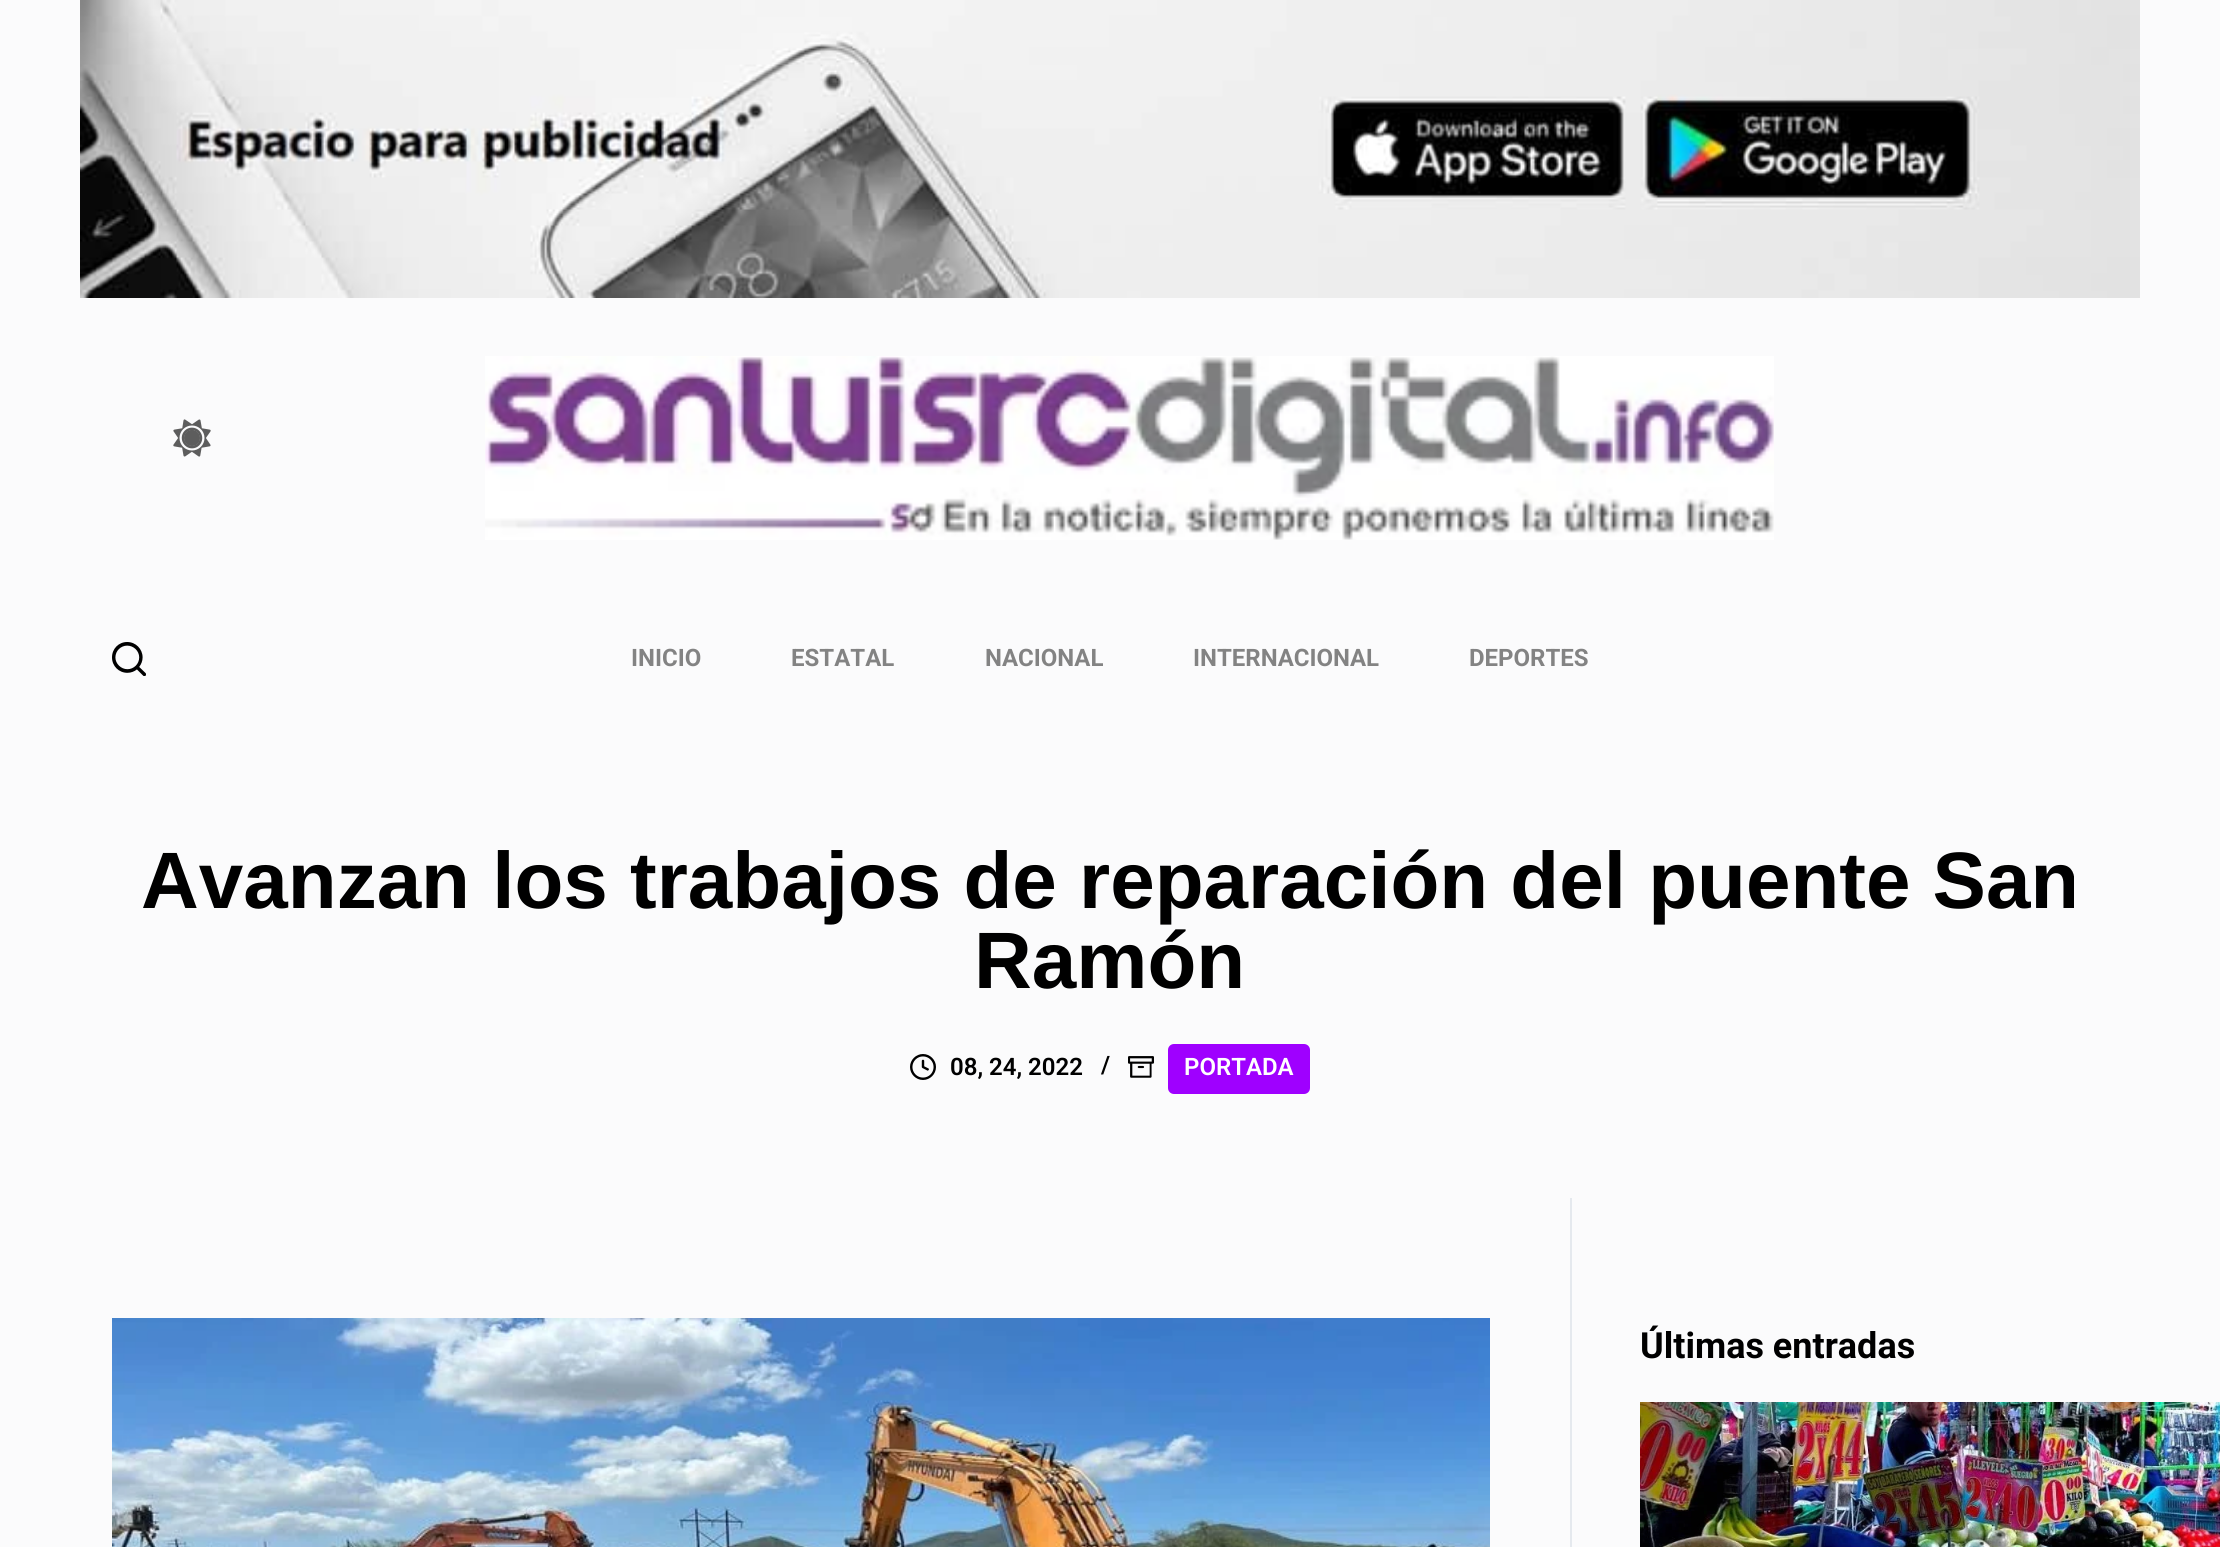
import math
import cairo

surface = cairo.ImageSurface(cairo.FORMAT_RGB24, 2220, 1547)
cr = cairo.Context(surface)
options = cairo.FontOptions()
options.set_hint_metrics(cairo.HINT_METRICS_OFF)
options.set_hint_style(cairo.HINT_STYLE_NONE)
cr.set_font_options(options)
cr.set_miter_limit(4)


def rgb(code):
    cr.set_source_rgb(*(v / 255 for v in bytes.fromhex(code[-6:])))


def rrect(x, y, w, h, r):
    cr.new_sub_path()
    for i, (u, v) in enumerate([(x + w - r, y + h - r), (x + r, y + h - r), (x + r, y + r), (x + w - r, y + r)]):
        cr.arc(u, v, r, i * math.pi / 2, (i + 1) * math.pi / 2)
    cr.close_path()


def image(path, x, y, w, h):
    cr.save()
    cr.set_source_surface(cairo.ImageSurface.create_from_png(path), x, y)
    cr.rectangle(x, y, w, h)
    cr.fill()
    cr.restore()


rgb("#fbfbfc")
cr.paint()
image("img/1.png", 80, 0, 2060, 298)
image("img/2.png", 173, 419, 38, 38)
image("img/3.png", 485, 356, 1289, 184)
image("img/4.png", 112, 642, 34, 34)
image("img/5.png", 910, 1054, 26, 26)
image("img/6.png", 1128, 1056, 26, 22)
rgb("#9f00ff")
rrect(1168, 1044, 142, 50, 6)
cr.fill()
image("img/7.png", 112, 1318, 1378, 229)
rgb("#e5e9ee")
cr.rectangle(1570, 1198, 2, 349)
cr.fill()
image("img/8.png", 1640, 1402, 580, 145)
cr.select_font_face("Roboto", cairo.FONT_SLANT_NORMAL, cairo.FONT_WEIGHT_BOLD)
cr.set_font_size(24)
rgb("#838383")
for x, y, s in [
    (631, 666, "INICIO"),
    (791, 666, "ESTATAL"),
    (985, 666, "NACIONAL"),
    (1193, 666, "INTERNACIONAL"),
    (1469, 666, "DEPORTES"),
]:
    cr.move_to(x, y)
    cr.show_text(s)
cr.select_font_face("Liberation Sans", cairo.FONT_SLANT_NORMAL, cairo.FONT_WEIGHT_BOLD)
cr.set_font_size(80)
rgb("#000000")
cr.move_to(141, 908)
cr.show_text("Avanzan los trabajos de reparación del puente San")
cr.move_to(974, 988)
cr.show_text("Ramón")
cr.select_font_face("Roboto SemiBold")
cr.set_font_size(24)
cr.move_to(950, 1075)
cr.show_text("08, 24, 2022")
cr.move_to(1101, 1073)
cr.show_text("/")
rgb("#ffffff")
cr.move_to(1184, 1075)
cr.show_text("PORTADA")
cr.select_font_face("Roboto", cairo.FONT_SLANT_NORMAL, cairo.FONT_WEIGHT_BOLD)
cr.set_font_size(36)
rgb("#000000")
cr.move_to(1640, 1358)
cr.show_text("Últimas entradas")
surface.write_to_png("page.png")
